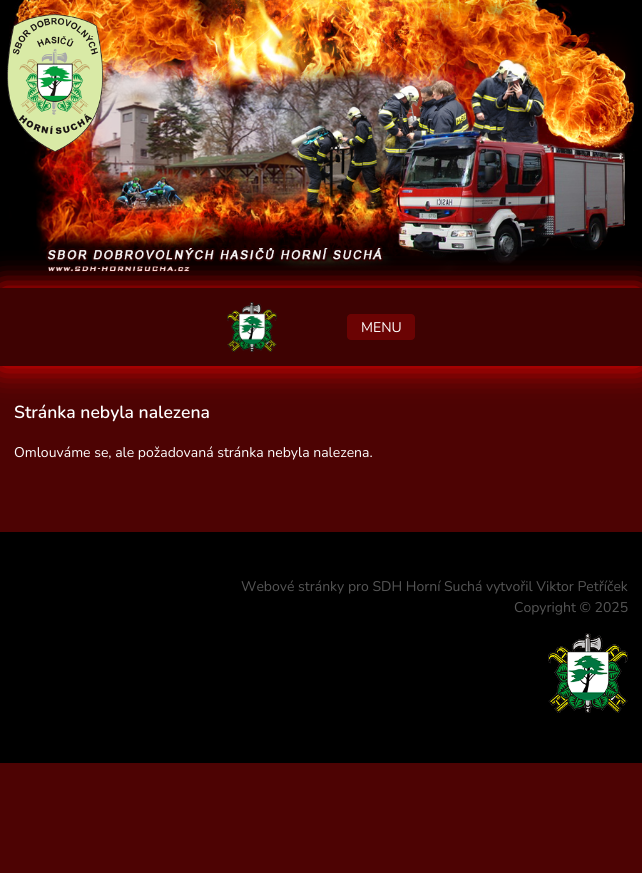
import math
import cairo

surface = cairo.ImageSurface(cairo.FORMAT_RGB24, 642, 873)
cr = cairo.Context(surface)
options = cairo.FontOptions()
options.set_hint_metrics(cairo.HINT_METRICS_OFF)
options.set_hint_style(cairo.HINT_STYLE_NONE)
cr.set_font_options(options)
cr.set_miter_limit(4)


def rgb(code):
    cr.set_source_rgb(*(v / 255 for v in bytes.fromhex(code[-6:])))


def rrect(x, y, w, h, r):
    cr.new_sub_path()
    for i, (u, v) in enumerate([(x + w - r, y + h - r), (x + r, y + h - r), (x + r, y + r), (x + w - r, y + r)]):
        cr.arc(u, v, r, i * math.pi / 2, (i + 1) * math.pi / 2)
    cr.close_path()


def soft_shadow(x, y, w, h, r, blur, alpha):
    cr.push_group_with_content(cairo.CONTENT_ALPHA)
    cr.set_operator(cairo.OPERATOR_SOURCE)
    for i in range(15, -16, -2):
        e = blur * i / 6
        if min(w, h) + 2 * e > 0:
            cr.set_source_rgba(0, 0, 0, alpha * math.erfc((i - 1) / 8.5) / 2)
            rrect(x - e, y - e, w + 2 * e, h + 2 * e, max(0, min(r + e + blur * .6, min(w, h) / 2 + e)))
            cr.fill()
    cr.mask(cr.pop_group())


def image(path, x, y, w, h):
    cr.save()
    cr.set_source_surface(cairo.ImageSurface.create_from_png(path), x, y)
    cr.rectangle(x, y, w, h)
    cr.fill()
    cr.restore()


rgb("#4d0303")
cr.paint()
rgb("#000000")
cr.rectangle(0, 0, 642, 288)
cr.fill()
image("img/1.png", 9, 0, 629, 272)
image("img/2.png", 7, 14, 96, 138)
rgb("#ff0000")
soft_shadow(0, 288, 642, 78, 0, 15, 1)
rgb("#3e0202")
cr.rectangle(0, 288, 642, 78)
cr.fill()
image("img/3.png", 227, 302, 50, 50)
rgb("#6b0303")
rrect(347, 314, 68, 26, 4)
cr.fill()
rgb("#000000")
cr.rectangle(0, 532, 642, 231)
cr.fill()
image("img/4.png", 548, 633, 80, 80)
cr.select_font_face("Nunito")
cr.set_font_size(14)
rgb("#ffffff")
cr.move_to(361, 332)
cr.show_text("MENU")
cr.select_font_face("Nunito SemiBold")
cr.set_font_size(17.5)
cr.move_to(14, 418)
cr.show_text("Stránka nebyla nalezena")
cr.select_font_face("Nunito")
cr.set_font_size(14)
cr.move_to(14, 457)
cr.show_text("Omlouváme se, ale požadovaná stránka nebyla nalezena.")
rgb("#565656")
cr.move_to(241, 591)
cr.show_text("Webové stránky pro SDH Horní Suchá vytvořil Viktor Petříček")
cr.move_to(514, 612)
cr.show_text("Copyright © 2025")
surface.write_to_png("page.png")
